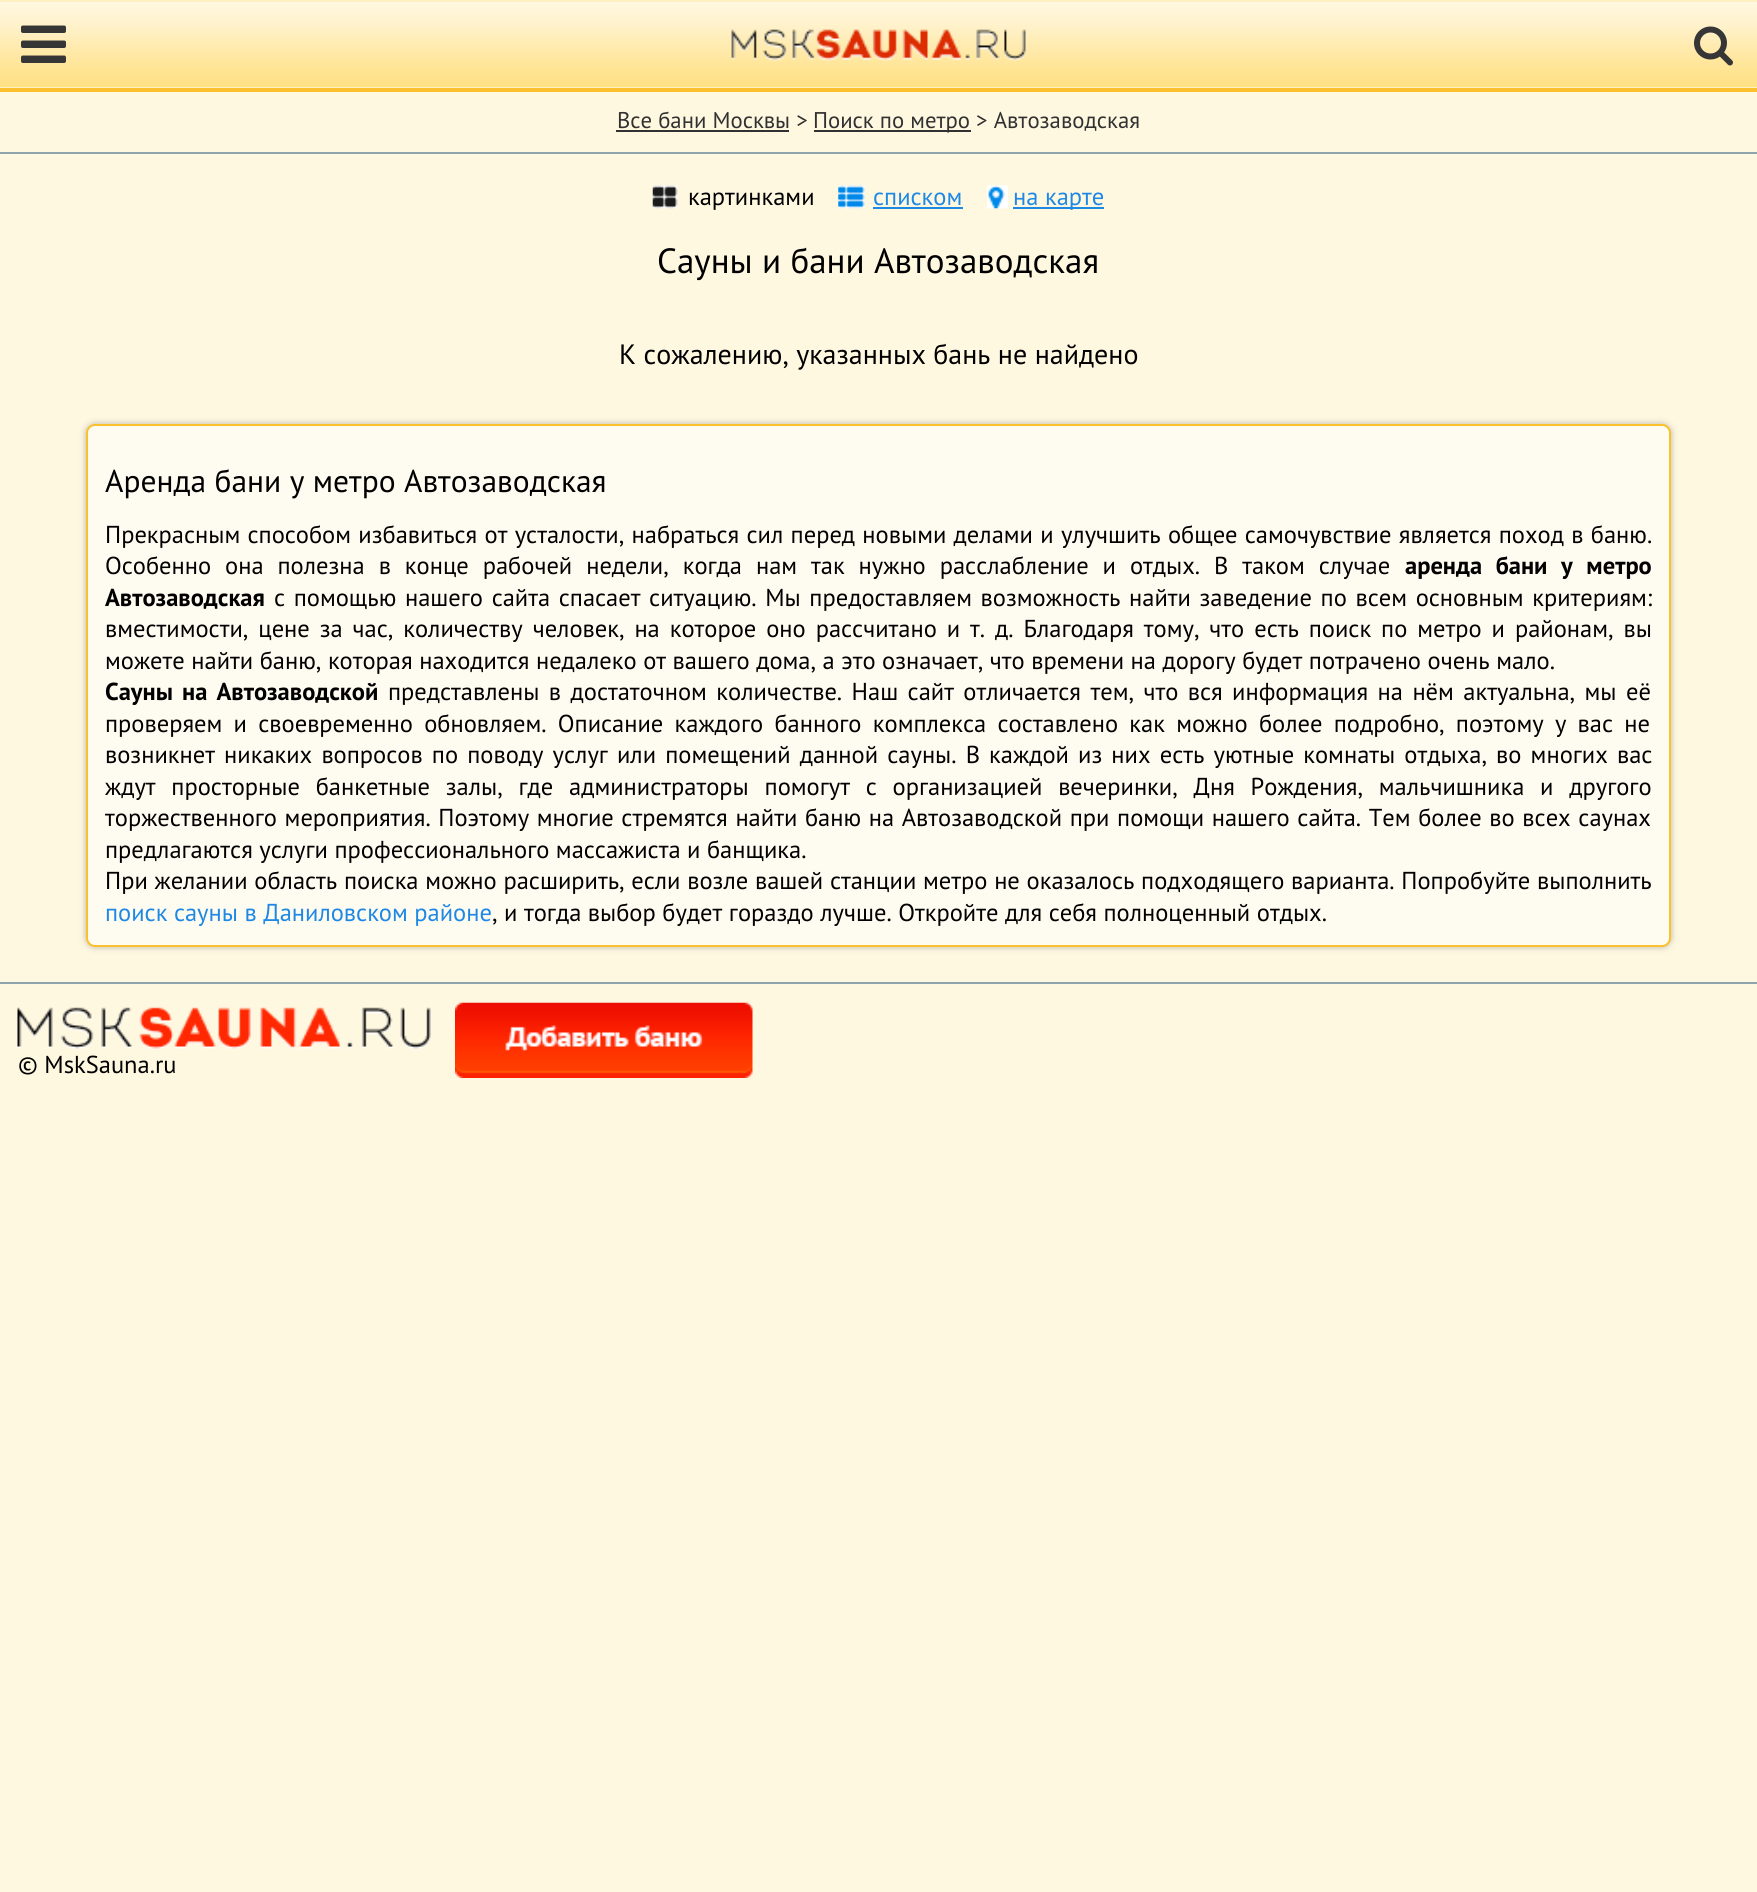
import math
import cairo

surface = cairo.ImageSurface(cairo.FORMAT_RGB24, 1757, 1892)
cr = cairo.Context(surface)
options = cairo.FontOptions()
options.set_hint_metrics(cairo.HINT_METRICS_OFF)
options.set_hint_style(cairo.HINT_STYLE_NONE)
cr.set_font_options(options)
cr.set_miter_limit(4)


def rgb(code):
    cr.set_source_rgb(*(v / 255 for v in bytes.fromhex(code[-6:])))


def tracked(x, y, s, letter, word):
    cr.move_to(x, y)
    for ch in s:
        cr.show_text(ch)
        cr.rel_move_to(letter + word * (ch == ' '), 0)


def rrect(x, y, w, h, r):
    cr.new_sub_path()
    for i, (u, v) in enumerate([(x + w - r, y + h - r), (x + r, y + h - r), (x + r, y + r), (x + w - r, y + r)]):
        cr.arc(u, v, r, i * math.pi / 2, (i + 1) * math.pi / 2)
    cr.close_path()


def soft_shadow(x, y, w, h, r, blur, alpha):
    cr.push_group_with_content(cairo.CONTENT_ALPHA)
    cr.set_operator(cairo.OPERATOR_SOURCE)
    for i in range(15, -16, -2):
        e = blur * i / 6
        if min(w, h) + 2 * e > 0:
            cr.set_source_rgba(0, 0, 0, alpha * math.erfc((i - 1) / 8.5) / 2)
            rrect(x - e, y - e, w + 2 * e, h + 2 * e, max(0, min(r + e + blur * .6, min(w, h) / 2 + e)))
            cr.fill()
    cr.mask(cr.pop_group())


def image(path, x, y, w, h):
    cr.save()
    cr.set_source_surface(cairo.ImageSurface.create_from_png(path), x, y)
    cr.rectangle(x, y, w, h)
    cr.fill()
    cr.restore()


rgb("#fff8e1")
cr.paint()
rgb("#ffffff")
cr.rectangle(0, 87, 1757, 1)
cr.fill()
image("img/1.png", 0, 0, 1757, 88)
rgb("#fbc02d")
cr.rectangle(0, 88, 1757, 4)
cr.fill()
image("img/2.png", 21, 25, 45, 38)
image("img/3.png", 731, 29, 295, 33)
image("img/4.png", 1694, 26, 39, 40)
for x, y, w, h, color in [
    (0, 152, 1757, 2, "#90a4ae"),
    (616, 130, 173, 2, "#313131"),
    (814, 130, 157, 2, "#313131"),
]:
    rgb(color)
    cr.rectangle(x, y, w, h)
    cr.fill()
image("img/5.png", 652, 185, 26, 24)
image("img/6.png", 838, 185, 27, 24)
rgb("#1e88e5")
cr.rectangle(873, 207, 90, 2)
cr.fill()
image("img/7.png", 987, 185, 21, 24)
cr.rectangle(1013, 207, 91, 2)
cr.fill()
rgb("#323232")
soft_shadow(86, 424, 1585, 523, 9, 3.5, 0.35)
rgb("#fefbf0")
rrect(87, 425, 1583, 521, 8)
cr.fill_preserve()
rgb("#fbc02d")
cr.stroke()
rgb("#90a4ae")
cr.rectangle(0, 982, 1757, 2)
cr.fill()
image("img/8.png", 17, 1007, 414, 43)
image("img/9.png", 455, 1002, 298, 76)
cr.select_font_face("PT Sans")
cr.set_font_size(22.75)
rgb("#313131")
cr.move_to(617, 128)
cr.show_text("Все бани Москвы >")
cr.move_to(813, 128)
cr.show_text("Поиск по метро > Автозаводская")
cr.set_font_size(24.5)
rgb("#000000")
cr.move_to(688, 205)
cr.show_text("картинками")
rgb("#1e88e5")
cr.move_to(873, 205)
cr.show_text("списком")
cr.move_to(1013, 205)
cr.show_text("на карте")
cr.set_font_size(35)
rgb("#000000")
cr.move_to(657, 273)
cr.show_text("Сауны и бани Автозаводская")
cr.set_font_size(28)
cr.move_to(619, 364)
cr.show_text("К сожалению, указанных бань не найдено")
cr.set_font_size(31.5)
cr.move_to(105, 492)
cr.show_text("Аренда бани у метро Автозаводская")
cr.set_font_size(24.5)
tracked(105, 543, "Прекрасным способом избавиться от усталости, набраться сил перед новыми делами и улучшить общее самочувствие является поход в баню.", 0, 0.75)
tracked(105, 574, "Особенно она полезна в конце рабочей недели, когда нам так нужно расслабление и отдых. В таком случае", 0, 7.4)
cr.select_font_face("PT Sans", cairo.FONT_SLANT_NORMAL, cairo.FONT_WEIGHT_BOLD)
tracked(1405, 574, "аренда бани у метро", 0, 7.4)
cr.move_to(105, 606)
cr.show_text("Автозаводская")
cr.select_font_face("PT Sans")
tracked(274, 606, "с помощью нашего сайта спасает ситуацию. Мы предоставляем возможность найти заведение по всем основным критериям:", 0, 2.1)
tracked(105, 637, "вместимости, цене за час, количеству человек, на которое оно рассчитано и т. д. Благодаря тому, что есть поиск по метро и районам, вы", 0, 3.4)
cr.move_to(105, 669)
cr.show_text("можете найти баню, которая находится недалеко от вашего дома, а это означает, что времени на дорогу будет потрачено очень мало.")
cr.select_font_face("PT Sans", cairo.FONT_SLANT_NORMAL, cairo.FONT_WEIGHT_BOLD)
tracked(105, 700, "Сауны на Автозаводской", 0, 2.9)
cr.select_font_face("PT Sans")
tracked(388, 700, "представлены в достаточном количестве. Наш сайт отличается тем, что вся информация на нём актуальна, мы её", 0, 2.9)
tracked(105, 732, "проверяем и своевременно обновляем. Описание каждого банного комплекса составлено как можно более подробно, поэтому у вас не", 0, 4.75)
tracked(105, 763, "возникнет никаких вопросов по поводу услуг или помещений данной сауны. В каждой из них есть уютные комнаты отдыха, во многих вас", 0, 2.6)
tracked(105, 795, "ждут просторные банкетные залы, где администраторы помогут с организацией вечеринки, Дня Рождения, мальчишника и другого", 0, 9.25)
tracked(105, 826, "торжественного мероприятия. Поэтому многие стремятся найти баню на Автозаводской при помощи нашего сайта. Тем более во всех саунах", 0, 1.1)
cr.move_to(105, 858)
cr.show_text("предлагаются услуги профессионального массажиста и банщика.")
tracked(105, 889, "При желании область поиска можно расширить, если возле вашей станции метро не оказалось подходящего варианта. Попробуйте выполнить", 0, 0.2)
rgb("#1e88e5")
cr.move_to(105, 921)
cr.show_text("поиск сауны в Даниловском районе")
rgb("#000000")
cr.move_to(492, 921)
cr.show_text(", и тогда выбор будет гораздо лучше. Откройте для себя полноценный отдых.")
cr.move_to(18, 1073)
cr.show_text("© MskSauna.ru")
surface.write_to_png("page.png")
